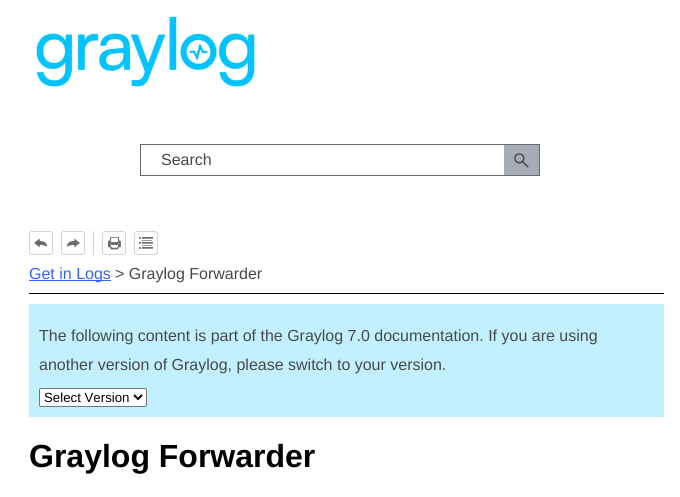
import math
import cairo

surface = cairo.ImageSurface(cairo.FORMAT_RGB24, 680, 497)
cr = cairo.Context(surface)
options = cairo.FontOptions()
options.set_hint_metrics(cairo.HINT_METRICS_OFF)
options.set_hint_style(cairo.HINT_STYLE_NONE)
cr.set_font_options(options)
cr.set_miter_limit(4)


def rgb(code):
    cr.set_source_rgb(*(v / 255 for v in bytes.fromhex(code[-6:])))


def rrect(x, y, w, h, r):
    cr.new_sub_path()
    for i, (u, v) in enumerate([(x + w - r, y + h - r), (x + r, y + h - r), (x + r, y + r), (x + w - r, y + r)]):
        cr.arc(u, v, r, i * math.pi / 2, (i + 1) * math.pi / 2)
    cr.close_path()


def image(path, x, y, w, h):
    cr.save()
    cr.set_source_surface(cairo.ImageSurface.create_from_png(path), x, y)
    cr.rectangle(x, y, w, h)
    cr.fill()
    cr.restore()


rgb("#ffffff")
cr.paint()
image("img/1.png", 36, 16, 219, 71)
cr.rectangle(140.5, 144.5, 399, 31)
rgb("#696969")
cr.set_line_width(1)
cr.stroke()
cr.set_source_rgba(0.412, 0.459, 0.525, 0.6)
cr.rectangle(504, 145, 35, 30)
cr.fill()
image("img/2.png", 514, 153, 15, 15)
rrect(29.5, 231.5, 23, 23, 2.5)
rgb("#d0d3d5")
cr.stroke()
image("img/3.png", 34, 238, 13, 10)
rrect(61.5, 231.5, 23, 23, 2.5)
cr.stroke()
image("img/4.png", 67, 238, 13, 10)
cr.rectangle(93, 231, 1, 24)
cr.fill()
rrect(102.5, 231.5, 23, 23, 2.5)
cr.stroke()
image("img/5.png", 107, 237, 14, 13)
rrect(134.5, 231.5, 23, 23, 2.5)
cr.stroke()
image("img/6.png", 139, 237, 14, 12)
for x, y, w, h, color in [
    (29, 293, 635, 1, "#000000"),
    (29, 280, 82, 1, "#3561ff"),
    (29, 304, 635, 113, "#c2f0ff"),
]:
    rgb(color)
    cr.rectangle(x, y, w, h)
    cr.fill()
rgb("#ffffff")
rrect(39.5, 388.5, 107, 18, 1.5)
cr.fill_preserve()
rgb("#767676")
cr.stroke()
cr.new_path()
cr.move_to(134, 395)
cr.line_to(138, 399)
cr.line_to(142, 395)
rgb("#000000")
cr.set_line_width(2)
cr.stroke()
cr.select_font_face("Liberation Sans")
cr.set_font_size(16)
rgb("#45494c")
cr.move_to(161, 165)
cr.show_text("Search")
rgb("#3561ff")
cr.move_to(29, 279)
cr.show_text("Get in Logs")
rgb("#45494c")
for x, y, s in [
    (115, 279, "> Graylog Forwarder"),
    (39, 341, "The following content is part of the Graylog 7.0 documentation. If you are using"),
    (39, 370, "another version of Graylog, please switch to your version."),
]:
    cr.move_to(x, y)
    cr.show_text(s)
cr.set_font_size(13.25)
rgb("#000000")
cr.move_to(44, 402)
cr.show_text("Select Version")
cr.select_font_face("Liberation Sans", cairo.FONT_SLANT_NORMAL, cairo.FONT_WEIGHT_BOLD)
cr.set_font_size(32)
cr.move_to(29, 467)
cr.show_text("Graylog Forwarder")
surface.write_to_png("page.png")
